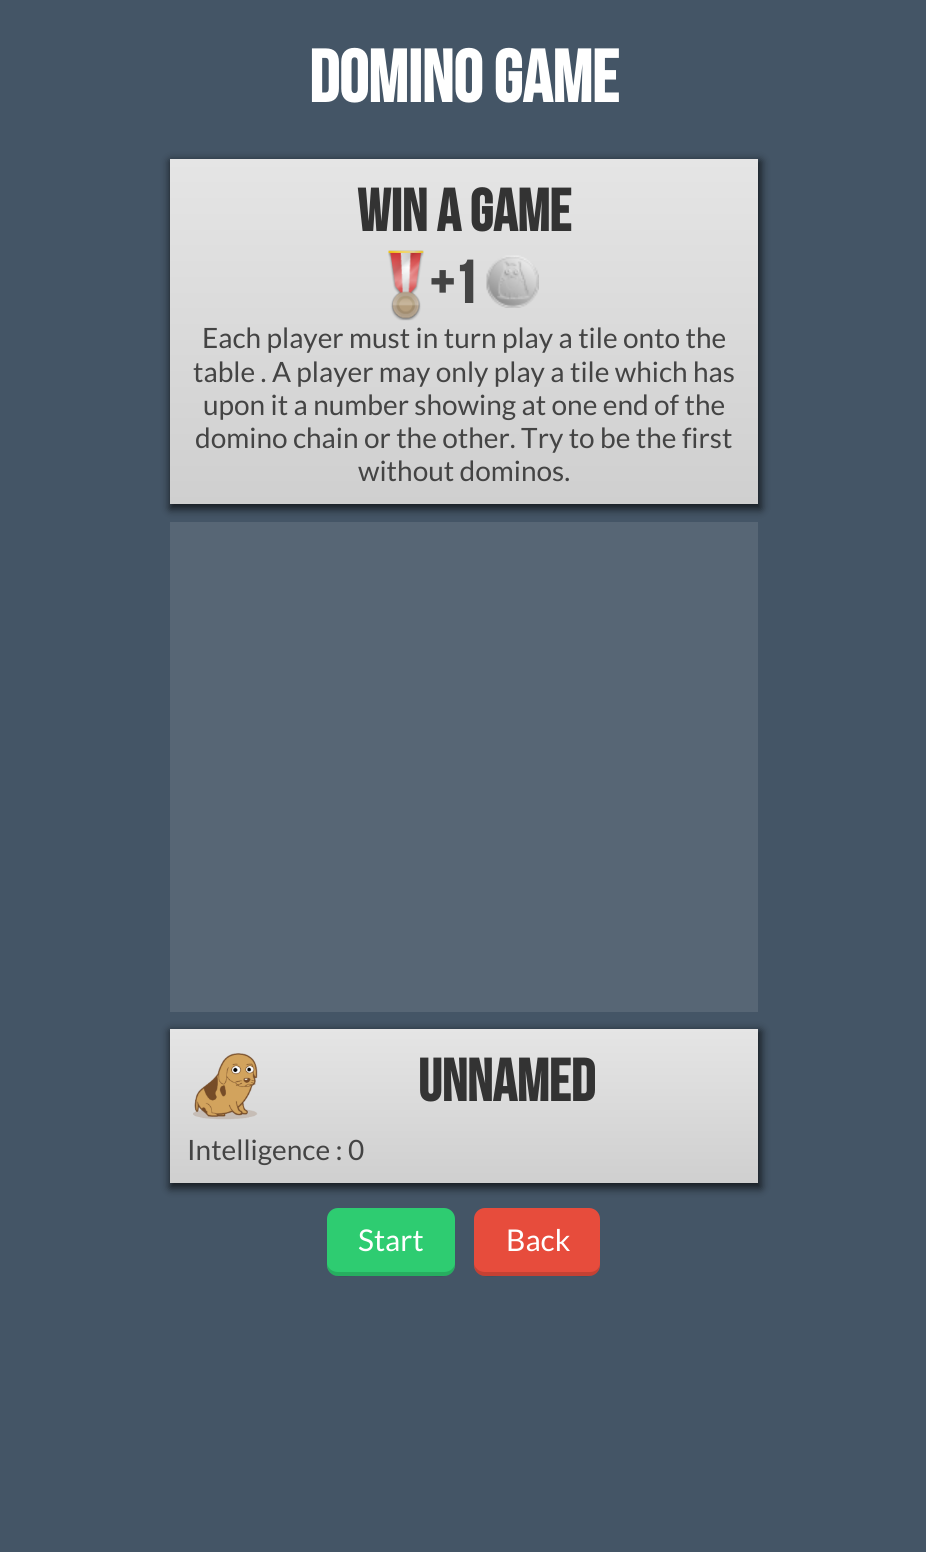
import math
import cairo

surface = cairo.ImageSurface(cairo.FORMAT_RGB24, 926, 1552)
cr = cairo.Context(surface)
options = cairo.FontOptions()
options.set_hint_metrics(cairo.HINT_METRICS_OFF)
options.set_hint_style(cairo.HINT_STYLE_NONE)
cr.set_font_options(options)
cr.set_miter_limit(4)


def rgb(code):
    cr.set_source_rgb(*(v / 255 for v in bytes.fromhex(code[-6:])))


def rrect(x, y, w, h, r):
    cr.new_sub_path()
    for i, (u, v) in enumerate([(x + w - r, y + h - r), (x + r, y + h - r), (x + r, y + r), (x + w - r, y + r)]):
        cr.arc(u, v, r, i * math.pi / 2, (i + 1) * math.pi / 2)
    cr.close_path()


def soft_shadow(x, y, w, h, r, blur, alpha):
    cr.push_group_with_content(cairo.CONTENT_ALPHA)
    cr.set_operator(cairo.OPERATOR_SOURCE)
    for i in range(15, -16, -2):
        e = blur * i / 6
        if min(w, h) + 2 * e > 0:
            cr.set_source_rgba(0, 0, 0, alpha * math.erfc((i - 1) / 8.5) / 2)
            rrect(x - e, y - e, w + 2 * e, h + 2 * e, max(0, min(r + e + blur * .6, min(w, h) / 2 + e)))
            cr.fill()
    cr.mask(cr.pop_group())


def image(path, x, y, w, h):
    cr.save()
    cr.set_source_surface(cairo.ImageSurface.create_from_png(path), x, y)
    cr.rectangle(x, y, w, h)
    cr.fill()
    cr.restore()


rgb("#445566")
cr.paint()
rgb("#000000")
soft_shadow(170, 161, 591, 348, 0, 4.5, 0.7)
gradient = cairo.LinearGradient(464, 159, 464, 504)
gradient.add_color_stop_rgba(0, 0.898, 0.898, 0.898, 1)
gradient.add_color_stop_rgba(1, 0.812, 0.812, 0.812, 1)
cr.set_source(gradient)
cr.rectangle(170, 159, 588, 345)
cr.fill()
image("img/1.png", 388, 250, 36, 71)
image("img/2.png", 486, 255, 53, 53)
rgb("#576675")
cr.rectangle(170, 522, 588, 490)
cr.fill()
rgb("#000000")
soft_shadow(170, 1031, 591, 157, 0, 4.5, 0.7)
gradient = cairo.LinearGradient(464, 1029, 464, 1183)
gradient.add_color_stop_rgba(0, 0.898, 0.898, 0.898, 1)
gradient.add_color_stop_rgba(1, 0.812, 0.812, 0.812, 1)
cr.set_source(gradient)
cr.rectangle(170, 1029, 588, 154)
cr.fill()
image("img/3.png", 193, 1053, 65, 67)
rgb("#2ecc71")
rrect(327, 1208, 128, 68, 11)
cr.fill()
cr.set_source_rgba(0, 0, 0, 0.15)
cr.new_path()
cr.move_to(327, 1262)
cr.curve_to(327, 1280, 341, 1276, 356, 1276)
cr.line_to(426, 1276)
cr.curve_to(441, 1276, 455, 1280, 455, 1262)
cr.curve_to(455, 1268, 450, 1272, 444, 1272)
cr.line_to(338, 1272)
cr.curve_to(332, 1272, 327, 1268, 327, 1262)
cr.close_path()
cr.fill()
rgb("#e74c3c")
rrect(474, 1208, 126, 68, 11)
cr.fill()
cr.set_source_rgba(0, 0, 0, 0.15)
cr.new_path()
cr.move_to(474, 1262)
cr.curve_to(474, 1280, 488, 1276, 502, 1276)
cr.line_to(572, 1276)
cr.curve_to(586, 1276, 600, 1280, 600, 1262)
cr.curve_to(600, 1268, 596, 1272, 590, 1272)
cr.line_to(485, 1272)
cr.curve_to(479, 1272, 474, 1268, 474, 1262)
cr.close_path()
cr.fill()
cr.select_font_face("Bebas Neue", cairo.FONT_SLANT_NORMAL, cairo.FONT_WEIGHT_BOLD)
cr.set_font_size(73.5)
rgb("#ffffff")
cr.move_to(309, 102)
cr.show_text("Domino game")
cr.set_font_size(59.5)
rgb("#333333")
cr.move_to(357, 231)
cr.show_text("Win a game")
rgb("#444444")
cr.move_to(430, 303)
cr.show_text("+1")
cr.select_font_face("Lato")
cr.set_font_size(28)
for x, y, s in [
    (202, 348, "Each player must in turn play a tile onto the"),
    (193, 382, "table . A player may only play a tile which has"),
    (203, 415, "upon it a number showing at one end of the"),
    (195, 448, "domino chain or the other. Try to be the first"),
    (358, 481, "without dominos."),
]:
    cr.move_to(x, y)
    cr.show_text(s)
cr.select_font_face("Bebas Neue", cairo.FONT_SLANT_NORMAL, cairo.FONT_WEIGHT_BOLD)
cr.set_font_size(59.5)
rgb("#333333")
cr.move_to(418, 1101)
cr.show_text("Unnamed")
cr.select_font_face("Lato")
cr.set_font_size(28)
rgb("#444444")
cr.move_to(187, 1160)
cr.show_text("Intelligence : 0")
cr.set_font_size(30)
rgb("#ffffff")
cr.move_to(358, 1251)
cr.show_text("Start")
cr.move_to(506, 1251)
cr.show_text("Back")
surface.write_to_png("page.png")
